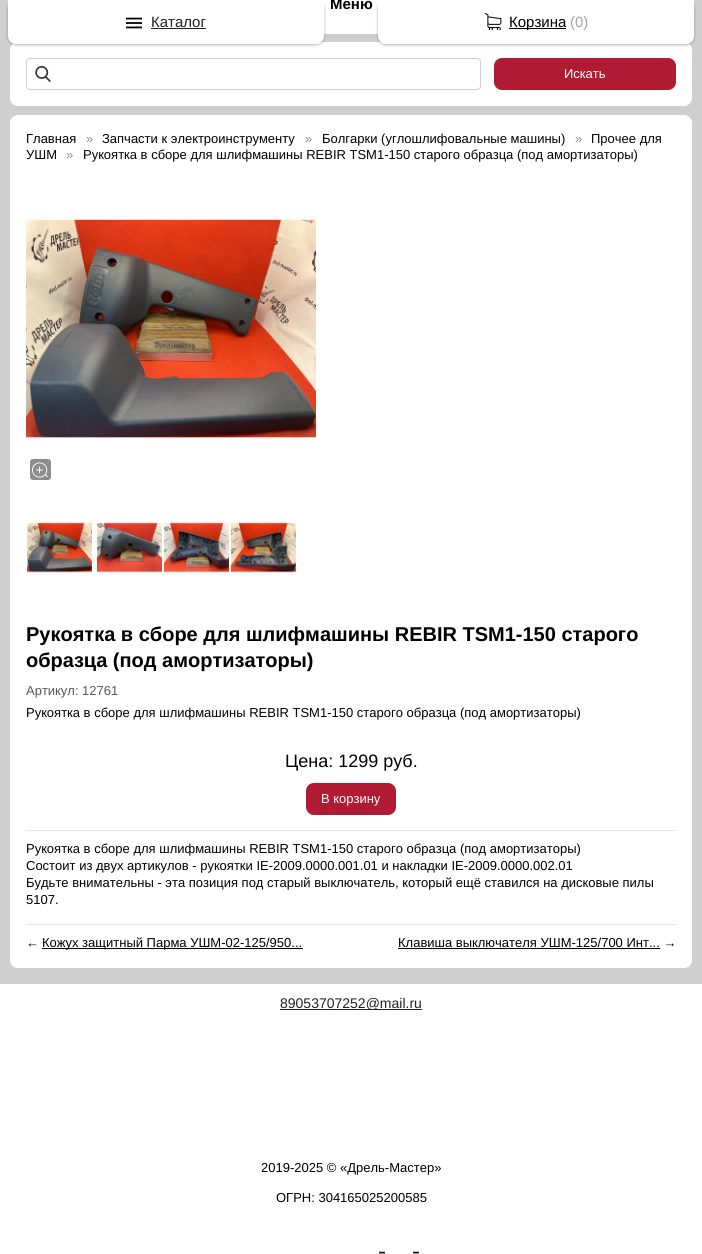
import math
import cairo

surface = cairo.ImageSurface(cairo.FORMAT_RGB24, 702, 1254)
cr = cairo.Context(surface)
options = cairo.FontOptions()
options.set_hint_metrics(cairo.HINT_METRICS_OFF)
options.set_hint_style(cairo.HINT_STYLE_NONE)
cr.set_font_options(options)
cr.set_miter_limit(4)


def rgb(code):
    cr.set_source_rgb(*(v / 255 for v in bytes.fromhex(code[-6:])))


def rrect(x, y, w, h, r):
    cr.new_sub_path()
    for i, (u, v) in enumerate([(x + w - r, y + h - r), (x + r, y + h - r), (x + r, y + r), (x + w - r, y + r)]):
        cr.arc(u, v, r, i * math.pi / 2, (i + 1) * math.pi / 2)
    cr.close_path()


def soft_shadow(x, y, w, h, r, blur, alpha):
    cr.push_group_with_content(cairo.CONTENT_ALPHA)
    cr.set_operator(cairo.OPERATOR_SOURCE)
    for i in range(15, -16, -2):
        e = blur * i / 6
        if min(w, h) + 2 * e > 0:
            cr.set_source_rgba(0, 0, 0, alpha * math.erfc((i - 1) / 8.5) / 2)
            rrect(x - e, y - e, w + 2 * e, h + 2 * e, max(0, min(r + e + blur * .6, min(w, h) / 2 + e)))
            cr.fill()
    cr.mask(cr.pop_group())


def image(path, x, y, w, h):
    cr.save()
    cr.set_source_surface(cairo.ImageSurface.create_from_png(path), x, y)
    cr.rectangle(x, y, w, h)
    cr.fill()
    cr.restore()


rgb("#cfcfcf")
cr.paint()
rgb("#ffffff")
cr.rectangle(324, 0, 54, 34)
cr.fill()
rrect(10, 42, 682, 64, 8)
cr.fill()
image("img/1.png", 35, 66, 16, 16)
rrect(26.5, 58.5, 454, 31, 3.5)
rgb("#cecece")
cr.set_line_width(1)
cr.stroke()
rgb("#b01a33")
rrect(494, 58, 182, 32, 8)
cr.fill()
rgb("#ffffff")
rrect(10, 115, 682, 853, 8)
cr.fill()
image("img/2.png", 26, 215, 290, 224)
rgb("#8c8c8c")
rrect(30, 459, 21, 21, 3)
cr.fill()
image("img/3.png", 32, 462, 16, 16)
image("img/4.png", 27, 522, 65, 51)
image("img/5.png", 97, 522, 65, 51)
image("img/6.png", 164, 522, 65, 51)
image("img/7.png", 231, 522, 65, 51)
rgb("#b01a33")
rrect(306, 783, 90, 32, 8)
cr.fill()
for x, y, w, h, color in [
    (26, 830, 650, 1, "#e5e5e5"),
    (26, 924, 650, 1, "#e5e5e5"),
    (42, 948, 261, 1, "#000000"),
    (398, 948, 262, 1, "#000000"),
]:
    rgb(color)
    cr.rectangle(x, y, w, h)
    cr.fill()
rgb("#000000")
soft_shadow(8, 1, 316, 44, 8, 1.5, 0.3)
rgb("#ffffff")
cr.new_path()
cr.move_to(8, 0)
cr.line_to(324, 0)
cr.line_to(324, 36)
cr.curve_to(324, 40.5, 320.5, 44, 316, 44)
cr.line_to(16, 44)
cr.curve_to(11.5, 44, 8, 40.5, 8, 36)
cr.close_path()
cr.fill()
image("img/8.png", 126, 17, 16, 12)
rgb("#222222")
cr.rectangle(151, 28, 55, 1)
cr.fill()
rgb("#000000")
soft_shadow(378, 1, 316, 44, 8, 1.5, 0.3)
rgb("#ffffff")
cr.new_path()
cr.move_to(378, 0)
cr.line_to(694, 0)
cr.line_to(694, 36)
cr.curve_to(694, 40.5, 690.5, 44, 686, 44)
cr.line_to(386, 44)
cr.curve_to(381.5, 44, 378, 40.5, 378, 36)
cr.close_path()
cr.fill()
image("img/9.png", 484, 13, 18, 17)
for x, y, w, h, color in [
    (509, 28, 57, 1, "#000000"),
    (0, 984, 702, 270, "#ffffff"),
    (280, 1009, 142, 1, "#222222"),
]:
    rgb(color)
    cr.rectangle(x, y, w, h)
    cr.fill()
cr.select_font_face("Liberation Sans", cairo.FONT_SLANT_NORMAL, cairo.FONT_WEIGHT_BOLD)
cr.set_font_size(15)
rgb("#000000")
cr.move_to(330, 9)
cr.show_text("Меню")
cr.select_font_face("Liberation Sans")
cr.set_font_size(13)
rgb("#ffffff")
cr.move_to(564, 78)
cr.show_text("Искать")
rgb("#000000")
cr.move_to(26, 143)
cr.show_text("Главная")
rgb("#8c8c8c")
cr.move_to(86, 143)
cr.show_text("»")
rgb("#000000")
cr.move_to(102, 143)
cr.show_text("Запчасти к электроинструменту")
rgb("#8c8c8c")
cr.move_to(305, 143)
cr.show_text("»")
rgb("#000000")
cr.move_to(322, 143)
cr.show_text("Болгарки (углошлифовальные машины)")
rgb("#8c8c8c")
cr.move_to(575, 143)
cr.show_text("»")
rgb("#000000")
cr.move_to(591, 143)
cr.show_text("Прочее для")
cr.move_to(26, 159)
cr.show_text("УШМ")
rgb("#8c8c8c")
cr.move_to(66, 159)
cr.show_text("»")
rgb("#000000")
cr.move_to(83, 159)
cr.show_text("Рукоятка в сборе для шлифмашины REBIR TSM1-150 старого образца (под амортизаторы)")
cr.select_font_face("Liberation Sans", cairo.FONT_SLANT_NORMAL, cairo.FONT_WEIGHT_BOLD)
cr.set_font_size(20)
cr.move_to(26, 641)
cr.show_text("Рукоятка в сборе для шлифмашины REBIR TSM1-150 старого")
cr.move_to(26, 667)
cr.show_text("образца (под амортизаторы)")
cr.select_font_face("Liberation Sans")
cr.set_font_size(13)
rgb("#575757")
cr.move_to(26, 695)
cr.show_text("Артикул: 12761")
rgb("#000000")
cr.move_to(26, 717)
cr.show_text("Рукоятка в сборе для шлифмашины REBIR TSM1-150 старого образца (под амортизаторы)")
cr.set_font_size(18)
cr.move_to(285, 767)
cr.show_text("Цена: 1299 руб.")
cr.set_font_size(13)
rgb("#ffffff")
cr.move_to(321, 803)
cr.show_text("В корзину")
rgb("#000000")
for x, y, s in [
    (26, 853, "Рукоятка в сборе для шлифмашины REBIR TSM1-150 старого образца (под амортизаторы)"),
    (26, 870, "Состоит из двух артикулов - рукоятки IE-2009.0000.001.01 и накладки IE-2009.0000.002.01"),
    (26, 887, "Будьте внимательны - эта позиция под старый выключатель, который ещё ставился на дисковые пилы"),
    (26, 904, "5107."),
    (26, 947, "←"),
    (42, 947, "Кожух защитный Парма УШМ-02-125/950..."),
    (398, 947, "Клавиша выключателя УШМ-125/700 Инт... →"),
]:
    cr.move_to(x, y)
    cr.show_text(s)
cr.set_font_size(15)
rgb("#222222")
cr.move_to(151, 27)
cr.show_text("Каталог")
rgb("#000000")
cr.move_to(509, 27)
cr.show_text("Корзина")
rgb("#a4a4a4")
cr.move_to(570, 27)
cr.show_text("(0)")
cr.set_font_size(14)
rgb("#222222")
cr.move_to(280, 1008)
cr.show_text("89053707252@mail.ru")
cr.set_font_size(13)
rgb("#000000")
cr.move_to(261, 1172)
cr.show_text("2019-2025 © «Дрель-Мастер»")
cr.move_to(276, 1202)
cr.show_text("ОГРН: 304165025200585")
cr.set_font_size(24)
rgb("#222222")
cr.move_to(378, 1259)
cr.show_text("-")
cr.move_to(412, 1259)
cr.show_text("-")
surface.write_to_png("page.png")
